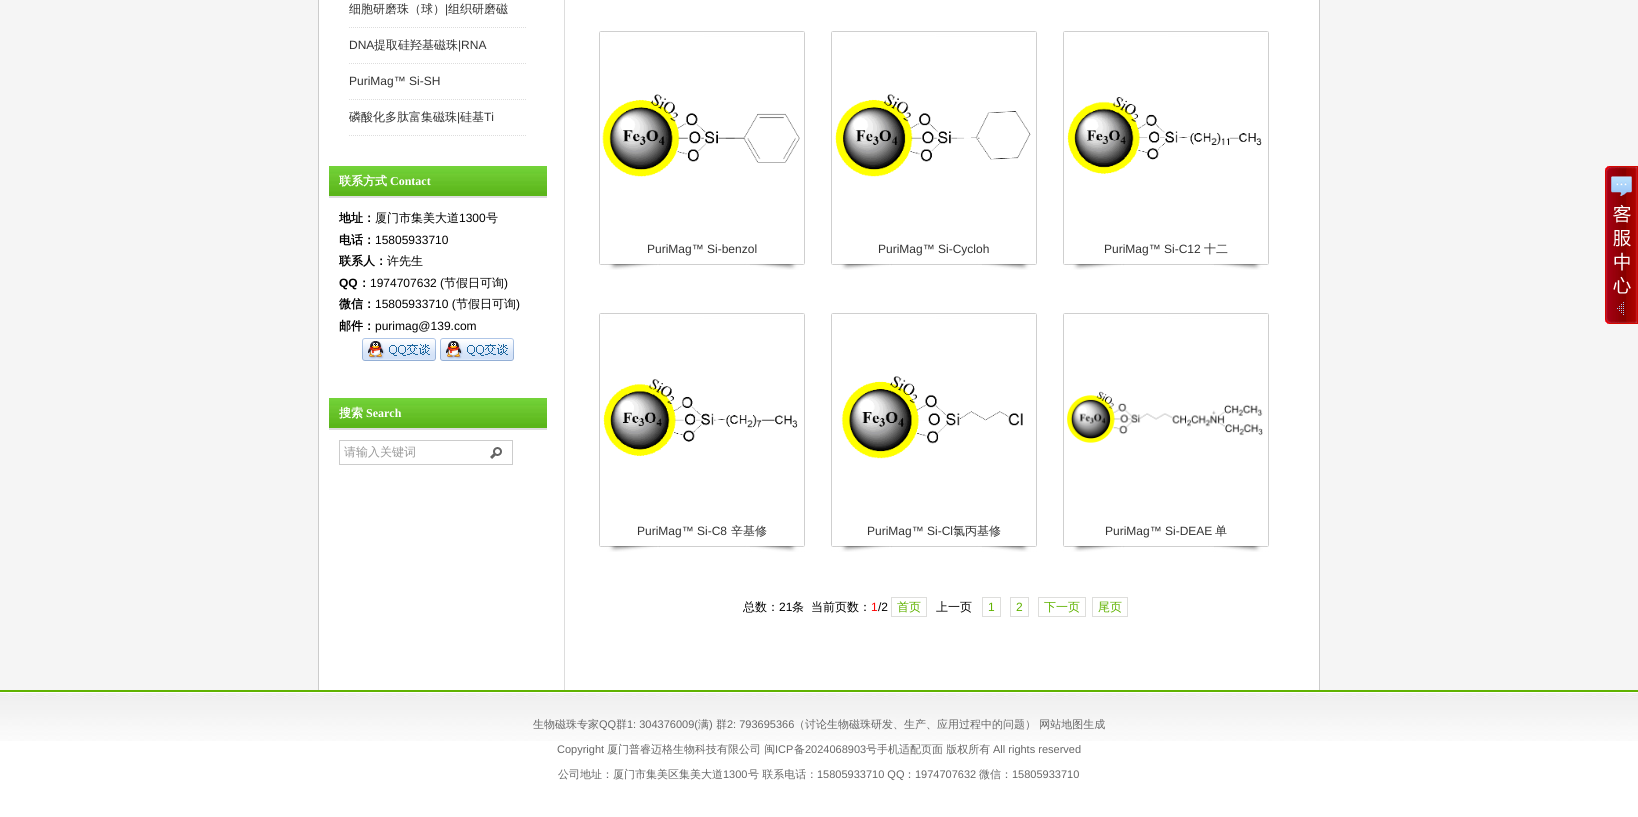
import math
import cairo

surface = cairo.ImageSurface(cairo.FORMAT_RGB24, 1638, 817)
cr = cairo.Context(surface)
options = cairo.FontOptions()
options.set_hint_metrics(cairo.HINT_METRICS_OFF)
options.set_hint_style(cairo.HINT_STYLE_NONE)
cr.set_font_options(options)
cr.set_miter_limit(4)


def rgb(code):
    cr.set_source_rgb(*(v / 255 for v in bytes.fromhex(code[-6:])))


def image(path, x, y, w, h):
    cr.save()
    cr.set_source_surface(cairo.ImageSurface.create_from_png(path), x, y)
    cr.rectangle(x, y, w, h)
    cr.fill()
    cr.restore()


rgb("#f5f5f5")
cr.paint()
for x, y, w, h, color in [
    (319, 0, 1000, 690, "#ffffff"),
    (1319, 0, 1, 690, "#cccccc"),
    (318, 0, 1, 690, "#cccccc"),
]:
    rgb(color)
    cr.rectangle(x, y, w, h)
    cr.fill()
cr.new_path()
cr.move_to(349, 27.5)
cr.line_to(527, 27.5)
rgb("#dddddd")
cr.set_line_width(1)
cr.set_dash([1, 1])
cr.stroke()
cr.new_path()
cr.move_to(349, 63.5)
cr.line_to(527, 63.5)
cr.stroke()
cr.new_path()
cr.move_to(349, 99.5)
cr.line_to(527, 99.5)
cr.stroke()
cr.new_path()
cr.move_to(349, 135.5)
cr.line_to(527, 135.5)
cr.stroke()
image("img/1.png", 329, 166, 218, 30)
cr.rectangle(329, 196, 218, 2)
cr.fill()
image("img/2.png", 362, 338, 74, 23)
image("img/2.png", 440, 338, 74, 23)
image("img/1.png", 329, 398, 218, 30)
cr.rectangle(329, 428, 218, 2)
cr.fill()
image("img/3.png", 339, 440, 174, 25)
cr.rectangle(564, 0, 1, 690)
cr.fill()
image("img/4.png", 599, 31, 206, 239)
image("img/5.png", 602, 94, 198, 83)
image("img/4.png", 831, 31, 206, 239)
image("img/6.png", 835, 94, 196, 83)
image("img/4.png", 1063, 31, 206, 239)
image("img/7.png", 1067, 97, 195, 77)
image("img/4.png", 599, 313, 206, 239)
image("img/8.png", 603, 379, 195, 78)
image("img/4.png", 831, 313, 206, 239)
image("img/9.png", 841, 376, 182, 83)
image("img/4.png", 1063, 313, 206, 239)
image("img/10.png", 1067, 391, 196, 52)
cr.rectangle(891.5, 597.5, 35, 19)
rgb("#dededc")
cr.set_dash([])
cr.stroke()
cr.rectangle(982.5, 597.5, 18, 19)
cr.stroke()
cr.rectangle(1010.5, 597.5, 18, 19)
cr.stroke()
cr.rectangle(1038.5, 597.5, 47, 19)
cr.stroke()
cr.rectangle(1092.5, 597.5, 35, 19)
cr.stroke()
rgb("#ffffff")
cr.rectangle(0, 692, 1638, 125)
cr.fill()
image("img/11.png", 0, 693, 1638, 48)
rgb("#5fb200")
cr.rectangle(0, 690, 1638, 2)
cr.fill()
image("img/12.png", 1605, 166, 33, 158)
cr.select_font_face("WenQuanYi Zen Hei Medium")
cr.set_font_size(12)
rgb("#333333")
cr.move_to(349, 13)
cr.show_text("细胞研磨珠（球）")
cr.select_font_face("Liberation Sans")
cr.move_to(445, 13)
cr.show_text("|")
cr.select_font_face("WenQuanYi Zen Hei Medium")
cr.move_to(448, 13)
cr.show_text("组织研磨磁")
cr.select_font_face("Liberation Sans")
cr.move_to(349, 49)
cr.show_text("DNA")
cr.select_font_face("WenQuanYi Zen Hei Medium")
cr.move_to(374, 49)
cr.show_text("提取硅羟基磁珠")
cr.select_font_face("Liberation Sans")
cr.move_to(458, 49)
cr.show_text("|RNA")
cr.move_to(349, 85)
cr.show_text("PuriMag™ Si-SH")
cr.select_font_face("WenQuanYi Zen Hei Medium")
cr.move_to(349, 121)
cr.show_text("磷酸化多肽富集磁珠")
cr.select_font_face("Liberation Sans")
cr.move_to(457, 121)
cr.show_text("|")
cr.select_font_face("WenQuanYi Zen Hei Medium")
cr.move_to(460, 121)
cr.show_text("硅基")
cr.select_font_face("Liberation Sans")
cr.move_to(484, 121)
cr.show_text("Ti")
cr.select_font_face("WenQuanYi Zen Hei", cairo.FONT_SLANT_NORMAL, cairo.FONT_WEIGHT_BOLD)
rgb("#ffffff")
cr.move_to(339, 185)
cr.show_text("联系方式")
cr.select_font_face("Liberation Serif", cairo.FONT_SLANT_NORMAL, cairo.FONT_WEIGHT_BOLD)
cr.move_to(390, 185)
cr.show_text("Contact")
cr.select_font_face("WenQuanYi Zen Hei", cairo.FONT_SLANT_NORMAL, cairo.FONT_WEIGHT_BOLD)
rgb("#000000")
cr.move_to(339, 222)
cr.show_text("地址：")
cr.select_font_face("WenQuanYi Zen Hei Medium")
cr.move_to(375, 222)
cr.show_text("厦门市集美大道")
cr.select_font_face("Liberation Sans")
cr.move_to(459, 222)
cr.show_text("1300")
cr.select_font_face("WenQuanYi Zen Hei Medium")
cr.move_to(486, 222)
cr.show_text("号")
cr.select_font_face("WenQuanYi Zen Hei", cairo.FONT_SLANT_NORMAL, cairo.FONT_WEIGHT_BOLD)
cr.move_to(339, 244)
cr.show_text("电话：")
cr.select_font_face("Liberation Sans")
cr.move_to(375, 244)
cr.show_text("15805933710")
cr.select_font_face("WenQuanYi Zen Hei", cairo.FONT_SLANT_NORMAL, cairo.FONT_WEIGHT_BOLD)
cr.move_to(339, 265)
cr.show_text("联系人：")
cr.select_font_face("WenQuanYi Zen Hei Medium")
cr.move_to(387, 265)
cr.show_text("许先生")
cr.select_font_face("Liberation Sans", cairo.FONT_SLANT_NORMAL, cairo.FONT_WEIGHT_BOLD)
cr.move_to(339, 287)
cr.show_text("QQ")
cr.select_font_face("WenQuanYi Zen Hei", cairo.FONT_SLANT_NORMAL, cairo.FONT_WEIGHT_BOLD)
cr.move_to(358, 287)
cr.show_text("：")
cr.select_font_face("Liberation Sans")
cr.move_to(370, 287)
cr.show_text("1974707632 (")
cr.select_font_face("WenQuanYi Zen Hei Medium")
cr.move_to(444, 287)
cr.show_text("节假日可询")
cr.select_font_face("Liberation Sans")
cr.move_to(504, 287)
cr.show_text(")")
cr.select_font_face("WenQuanYi Zen Hei", cairo.FONT_SLANT_NORMAL, cairo.FONT_WEIGHT_BOLD)
cr.move_to(339, 308)
cr.show_text("微信：")
cr.select_font_face("Liberation Sans")
cr.move_to(375, 308)
cr.show_text("15805933710 (")
cr.select_font_face("WenQuanYi Zen Hei Medium")
cr.move_to(456, 308)
cr.show_text("节假日可询")
cr.select_font_face("Liberation Sans")
cr.move_to(516, 308)
cr.show_text(")")
cr.select_font_face("WenQuanYi Zen Hei", cairo.FONT_SLANT_NORMAL, cairo.FONT_WEIGHT_BOLD)
cr.move_to(339, 330)
cr.show_text("邮件：")
cr.select_font_face("Liberation Sans")
cr.move_to(375, 330)
cr.show_text("purimag@139.com")
cr.select_font_face("WenQuanYi Zen Hei", cairo.FONT_SLANT_NORMAL, cairo.FONT_WEIGHT_BOLD)
rgb("#ffffff")
cr.move_to(339, 417)
cr.show_text("搜索")
cr.select_font_face("Liberation Serif", cairo.FONT_SLANT_NORMAL, cairo.FONT_WEIGHT_BOLD)
cr.move_to(366, 417)
cr.show_text("Search")
cr.select_font_face("WenQuanYi Zen Hei Medium")
rgb("#999999")
cr.move_to(344, 456)
cr.show_text("请输入关键词")
cr.select_font_face("Liberation Sans")
rgb("#333333")
for x, y, s in [
    (647, 253, "PuriMag™ Si-benzol"),
    (878, 253, "PuriMag™ Si-Cycloh"),
    (1104, 253, "PuriMag™ Si-C12"),
]:
    cr.move_to(x, y)
    cr.show_text(s)
cr.select_font_face("WenQuanYi Zen Hei Medium")
cr.move_to(1204, 253)
cr.show_text("十二")
cr.select_font_face("Liberation Sans")
cr.move_to(637, 535)
cr.show_text("PuriMag™ Si-C8")
cr.select_font_face("WenQuanYi Zen Hei Medium")
cr.move_to(731, 535)
cr.show_text("辛基修")
cr.select_font_face("Liberation Sans")
cr.move_to(867, 535)
cr.show_text("PuriMag™ Si-Cl")
cr.select_font_face("WenQuanYi Zen Hei Medium")
cr.move_to(953, 535)
cr.show_text("氯丙基修")
cr.select_font_face("Liberation Sans")
cr.move_to(1105, 535)
cr.show_text("PuriMag™ Si-DEAE")
cr.select_font_face("WenQuanYi Zen Hei Medium")
cr.move_to(1215, 535)
cr.show_text("单")
rgb("#000000")
cr.move_to(743, 611)
cr.show_text("总数：")
cr.select_font_face("Liberation Sans")
cr.move_to(779, 611)
cr.show_text("21")
cr.select_font_face("WenQuanYi Zen Hei Medium")
cr.move_to(792, 611)
cr.show_text("条")
cr.move_to(811, 611)
cr.show_text("当前页数：")
cr.select_font_face("Liberation Sans")
rgb("#ff0000")
cr.move_to(871, 611)
cr.show_text("1")
rgb("#000000")
cr.move_to(878, 611)
cr.show_text("/2")
cr.select_font_face("WenQuanYi Zen Hei Medium")
rgb("#5fb200")
cr.move_to(897, 611)
cr.show_text("首页")
rgb("#000000")
cr.move_to(936, 611)
cr.show_text("上一页")
cr.select_font_face("Liberation Sans")
rgb("#5fb200")
cr.move_to(988, 611)
cr.show_text("1")
cr.move_to(1016, 611)
cr.show_text("2")
cr.select_font_face("WenQuanYi Zen Hei Medium")
cr.move_to(1044, 611)
cr.show_text("下一页")
cr.move_to(1098, 611)
cr.show_text("尾页")
cr.set_font_size(11)
rgb("#666666")
cr.move_to(533, 728)
cr.show_text("生物磁珠专家")
cr.select_font_face("Liberation Sans")
cr.move_to(599, 728)
cr.show_text("QQ")
cr.select_font_face("WenQuanYi Zen Hei Medium")
cr.move_to(616, 728)
cr.show_text("群")
cr.select_font_face("Liberation Sans")
cr.move_to(627, 728)
cr.show_text("1: 304376009(")
cr.select_font_face("WenQuanYi Zen Hei Medium")
cr.move_to(698, 728)
cr.show_text("满")
cr.select_font_face("Liberation Sans")
cr.move_to(709, 728)
cr.show_text(")")
cr.select_font_face("WenQuanYi Zen Hei Medium")
cr.move_to(716, 728)
cr.show_text("群")
cr.select_font_face("Liberation Sans")
cr.move_to(727, 728)
cr.show_text("2: 793695366")
cr.select_font_face("WenQuanYi Zen Hei Medium")
cr.move_to(794, 728)
cr.show_text("（讨论生物磁珠研发、生产、应用过程中的问题） 网站地图生成")
cr.select_font_face("Liberation Sans")
cr.move_to(557, 753)
cr.show_text("Copyright")
cr.select_font_face("WenQuanYi Zen Hei Medium")
cr.move_to(607, 753)
cr.show_text("厦门普睿迈格生物科技有限公司 闽")
cr.select_font_face("Liberation Sans")
cr.move_to(775, 753)
cr.show_text("ICP")
cr.select_font_face("WenQuanYi Zen Hei Medium")
cr.move_to(794, 753)
cr.show_text("备")
cr.select_font_face("Liberation Sans")
cr.move_to(805, 753)
cr.show_text("2024068903")
cr.select_font_face("WenQuanYi Zen Hei Medium")
cr.move_to(866, 753)
cr.show_text("号手机适配页面 版权所有")
cr.select_font_face("Liberation Sans")
cr.move_to(993, 753)
cr.show_text("All rights reserved")
cr.select_font_face("WenQuanYi Zen Hei Medium")
cr.move_to(558, 778)
cr.show_text("公司地址：厦门市集美区集美大道")
cr.select_font_face("Liberation Sans")
cr.move_to(723, 778)
cr.show_text("1300")
cr.select_font_face("WenQuanYi Zen Hei Medium")
cr.move_to(748, 778)
cr.show_text("号 联系电话：")
cr.select_font_face("Liberation Sans")
cr.move_to(817, 778)
cr.show_text("15805933710 QQ")
cr.select_font_face("WenQuanYi Zen Hei Medium")
cr.move_to(904, 778)
cr.show_text("：")
cr.select_font_face("Liberation Sans")
cr.move_to(915, 778)
cr.show_text("1974707632")
cr.select_font_face("WenQuanYi Zen Hei Medium")
cr.move_to(979, 778)
cr.show_text("微信：")
cr.select_font_face("Liberation Sans")
cr.move_to(1012, 778)
cr.show_text("15805933710")
surface.write_to_png("page.png")
